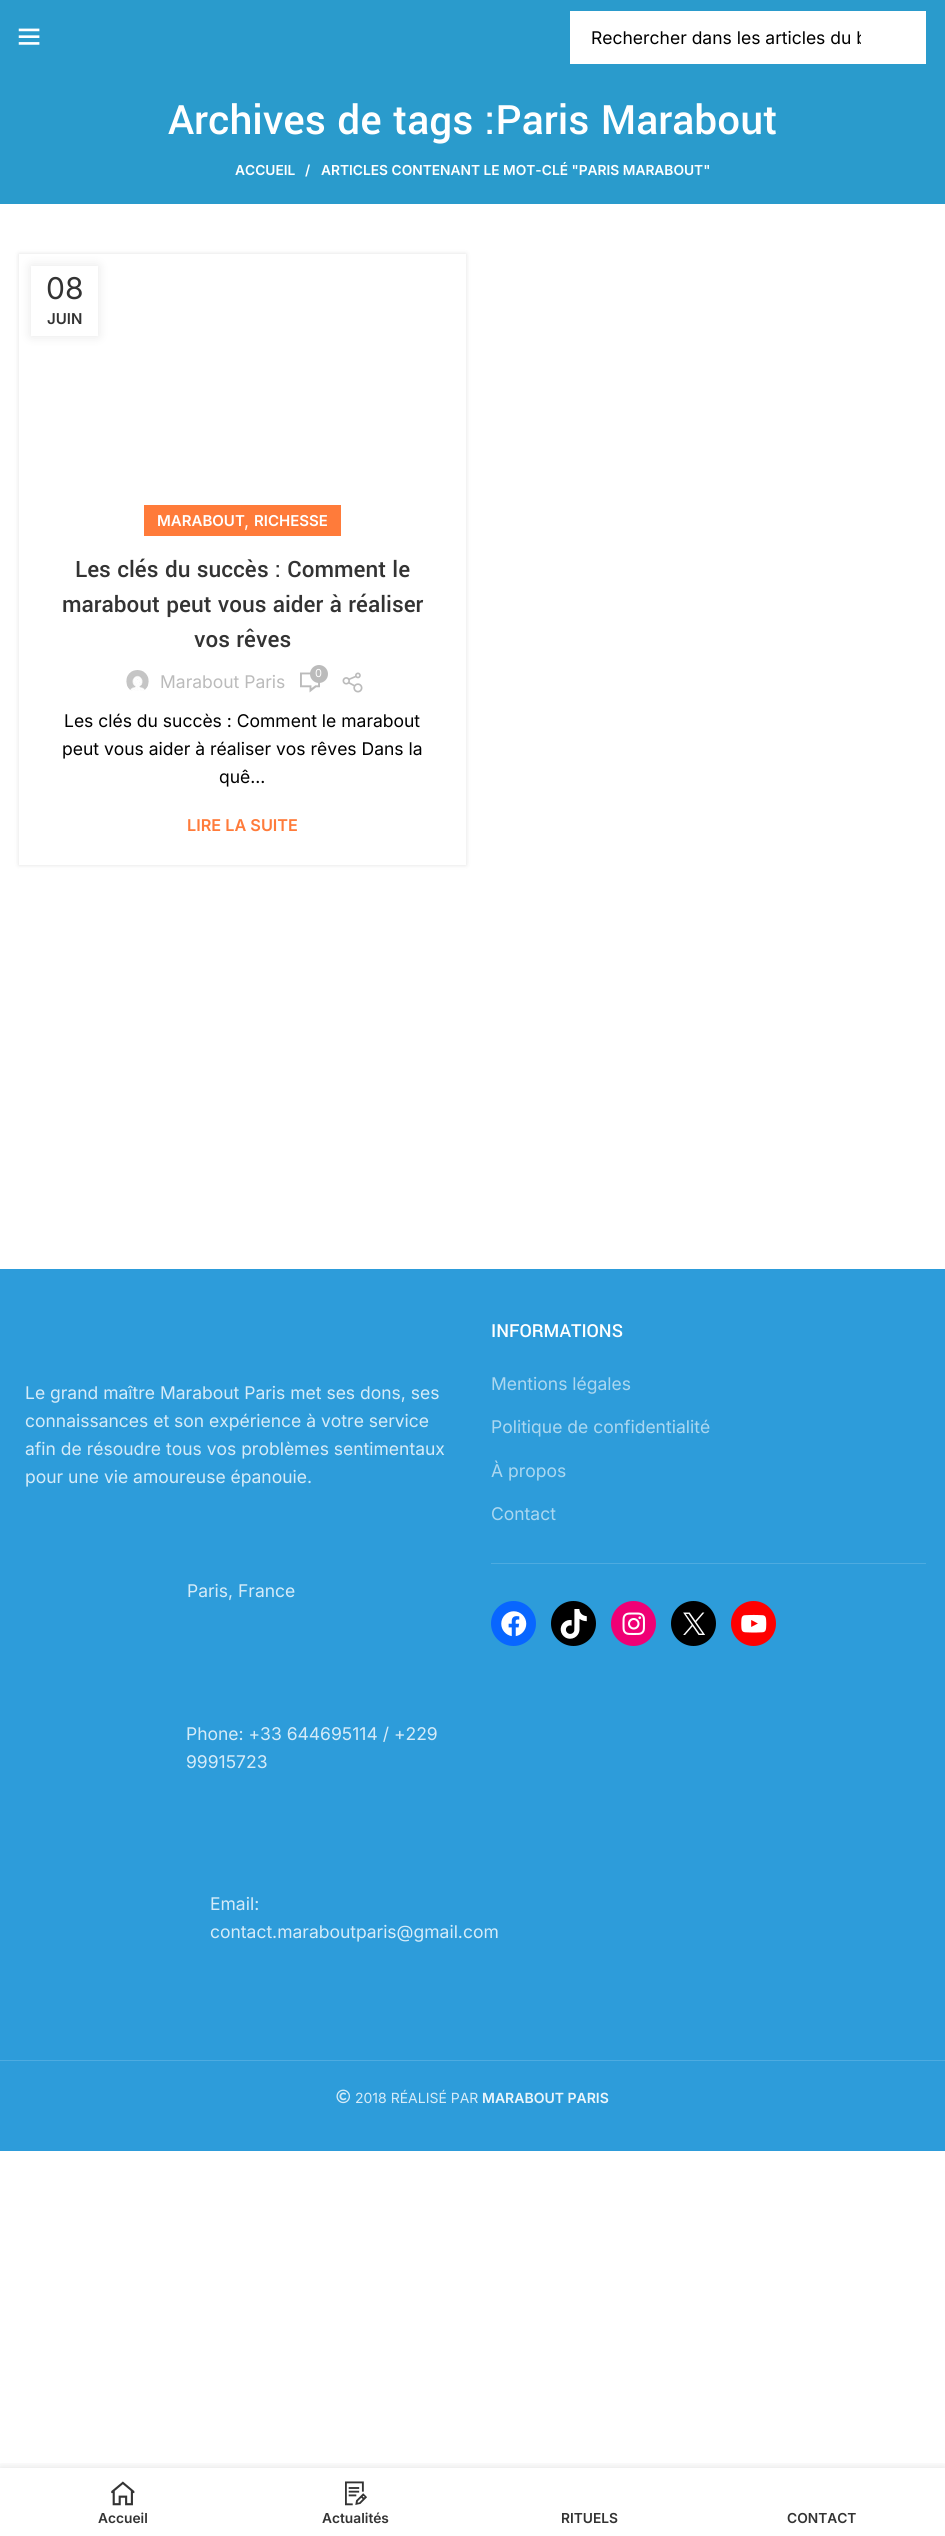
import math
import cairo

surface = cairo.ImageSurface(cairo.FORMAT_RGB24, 945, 2536)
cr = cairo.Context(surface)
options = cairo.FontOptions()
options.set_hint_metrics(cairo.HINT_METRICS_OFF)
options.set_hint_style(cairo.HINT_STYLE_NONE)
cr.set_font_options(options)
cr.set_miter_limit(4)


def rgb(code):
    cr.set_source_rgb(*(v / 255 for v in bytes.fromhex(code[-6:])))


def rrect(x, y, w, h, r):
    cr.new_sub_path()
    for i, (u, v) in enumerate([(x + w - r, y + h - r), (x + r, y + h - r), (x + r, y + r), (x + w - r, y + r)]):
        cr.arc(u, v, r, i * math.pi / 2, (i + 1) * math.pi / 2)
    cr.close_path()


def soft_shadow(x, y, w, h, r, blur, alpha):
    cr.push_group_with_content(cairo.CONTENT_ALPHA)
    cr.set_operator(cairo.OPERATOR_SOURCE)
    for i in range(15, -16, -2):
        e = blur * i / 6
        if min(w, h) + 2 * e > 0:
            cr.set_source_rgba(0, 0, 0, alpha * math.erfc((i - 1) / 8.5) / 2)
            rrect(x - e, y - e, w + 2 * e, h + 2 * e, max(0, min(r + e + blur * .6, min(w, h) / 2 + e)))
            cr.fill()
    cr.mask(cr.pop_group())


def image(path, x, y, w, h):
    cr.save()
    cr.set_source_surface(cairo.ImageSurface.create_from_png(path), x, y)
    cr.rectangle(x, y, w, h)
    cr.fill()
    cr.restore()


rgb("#ffffff")
cr.paint()
rgb("#2a9bcc")
cr.rectangle(0, 0, 945, 204)
cr.fill()
image("img/1.png", 18, 28, 22, 17)
rgb("#ffffff")
cr.rectangle(570, 11, 356, 53)
cr.fill()
cr.save()
cr.set_fill_rule(cairo.FILL_RULE_EVEN_ODD)
cr.new_path()
cr.move_to(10, 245)
cr.line_to(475, 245)
cr.line_to(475, 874)
cr.line_to(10, 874)
cr.close_path()
cr.move_to(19, 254)
cr.line_to(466, 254)
cr.line_to(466, 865)
cr.line_to(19, 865)
cr.close_path()
cr.clip()
rgb("#000000")
soft_shadow(19, 254, 447, 611, 0, 2.5, 0.12)
cr.restore()
rgb("#000000")
soft_shadow(31, 266, 67, 70, 0, 5.5, 0.1)
rgb("#ffffff")
cr.rectangle(31, 266, 67, 70)
cr.fill()
rgb("#ff7b3a")
cr.rectangle(144, 505, 197, 31)
cr.fill()
image("img/2.png", 300, 672, 20, 21)
rgb("#bbbbbb")
cr.arc(319, 674, 9, 0, 2 * math.pi)
cr.fill()
image("img/3.png", 126, 670, 23, 21)
image("img/4.png", 342, 672, 21, 21)
rgb("#2d9cda")
cr.rectangle(0, 1269, 945, 882)
cr.fill()
rgb("#4dabe0")
cr.rectangle(491, 1563, 435, 1)
cr.fill()
rgb("#0866ff")
cr.arc(513.5, 1623.5, 22.5, 0, 2 * math.pi)
cr.fill()
image("img/5.png", 501, 1611, 26, 26)
rgb("#000000")
cr.arc(573.5, 1623.5, 22.5, 0, 2 * math.pi)
cr.fill()
image("img/6.png", 560, 1609, 27, 30)
rgb("#f00075")
cr.arc(633.5, 1623.5, 22.5, 0, 2 * math.pi)
cr.fill()
image("img/7.png", 622, 1612, 23, 23)
rgb("#000000")
cr.arc(693.5, 1623.5, 22.5, 0, 2 * math.pi)
cr.fill()
image("img/8.png", 683, 1612, 22, 23)
rgb("#ff0000")
cr.arc(753.5, 1623.5, 22.5, 0, 2 * math.pi)
cr.fill()
image("img/9.png", 741, 1614, 26, 19)
rgb("#4dabe0")
cr.rectangle(0, 2060, 945, 1)
cr.fill()
image("img/10.png", 336, 2089, 14, 15)
cr.save()
cr.rectangle(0, 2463, 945, 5)
cr.clip()
rgb("#000000")
soft_shadow(0, 2468, 945, 68, 0, 5.5, 0.12)
cr.restore()
image("img/11.png", 111, 2481, 24, 25)
image("img/12.png", 345, 2481, 22, 25)
cr.save()
cr.rectangle(591, 28, 270, 21)
cr.clip()
cr.select_font_face("Inter")
cr.set_font_size(17.5)
rgb("#000000")
cr.move_to(591, 44)
cr.show_text("Rechercher dans les articles du b")
cr.restore()
cr.select_font_face("Yantramanav Medium")
cr.set_font_size(45)
rgb("#ffffff")
cr.move_to(168, 134)
cr.show_text("Archives de tags :Paris Marabout")
cr.select_font_face("Inter SemiBold")
cr.set_font_size(13.75)
for x, y, s in [
    (235, 175, "ACCUEIL"),
    (305, 175, "/"),
    (321, 175, "ARTICLES CONTENANT LE MOT-CLÉ \"PARIS MARABOUT\""),
]:
    cr.move_to(x, y)
    cr.show_text(s)
cr.select_font_face("Inter")
cr.set_font_size(30)
rgb("#333333")
cr.move_to(46, 299)
cr.show_text("08")
cr.select_font_face("Inter SemiBold")
cr.set_font_size(15)
cr.move_to(47, 324)
cr.show_text("JUIN")
rgb("#ffffff")
cr.move_to(157, 526)
cr.show_text("MARABOUT")
cr.move_to(254, 526)
cr.show_text("RICHESSE")
cr.select_font_face("Inter")
cr.set_font_size(17.5)
cr.move_to(244, 527)
cr.show_text(",")
cr.select_font_face("Yantramanav Medium")
cr.set_font_size(25)
rgb("#333333")
for x, y, s in [
    (75, 577, "Les clés du succès : Comment le"),
    (62, 612, "marabout peut vous aider à réaliser"),
    (194, 647, "vos rêves"),
]:
    cr.move_to(x, y)
    cr.show_text(s)
cr.select_font_face("Inter")
cr.set_font_size(11)
rgb("#ffffff")
cr.move_to(315, 677)
cr.show_text("0")
cr.set_font_size(17.5)
rgb("#bbbbbb")
cr.move_to(160, 688)
cr.show_text("Marabout Paris")
rgb("#000000")
for x, y, s in [
    (64, 727, "Les clés du succès : Comment le marabout"),
    (62, 755, "peut vous aider à réaliser vos rêves Dans la"),
    (219, 783, "quê..."),
]:
    cr.move_to(x, y)
    cr.show_text(s)
cr.select_font_face("Inter SemiBold")
cr.set_font_size(16.25)
rgb("#ff7b3a")
cr.move_to(187, 831)
cr.show_text("LIRE LA SUITE")
cr.select_font_face("Inter")
cr.set_font_size(17.5)
rgb("#d5ebf8")
for x, y, s in [
    (25, 1399, "Le grand maître Marabout Paris met ses dons, ses"),
    (25, 1427, "connaissances et son expérience à votre service"),
    (25, 1455, "afin de résoudre tous vos problèmes sentimentaux"),
    (25, 1483, "pour une vie amoureuse épanouie."),
    (187, 1597, "Paris, France"),
    (186, 1740, "Phone: +33 644695114 / +229"),
    (186, 1768, "99915723"),
    (210, 1910, "Email:"),
    (210, 1938, "contact.maraboutparis@gmail.com"),
]:
    cr.move_to(x, y)
    cr.show_text(s)
cr.select_font_face("Yantramanav Medium")
cr.set_font_size(20)
rgb("#ffffff")
cr.move_to(491, 1337)
cr.show_text("INFORMATIONS")
cr.select_font_face("Inter")
cr.set_font_size(17.5)
rgb("#abd7f0")
for x, y, s in [
    (491, 1390, "Mentions légales"),
    (491, 1433, "Politique de confidentialité"),
    (491, 1477, "À propos"),
    (491, 1520, "Contact"),
]:
    cr.move_to(x, y)
    cr.show_text(s)
cr.set_font_size(14)
rgb("#d5ebf8")
cr.move_to(355, 2103)
cr.show_text("2018 RÉALISÉ PAR")
cr.select_font_face("Inter SemiBold")
rgb("#eaf5fb")
cr.move_to(482, 2103)
cr.show_text("MARABOUT PARIS")
cr.set_font_size(13.75)
rgb("#333333")
for x, y, s in [
    (98, 2523, "Accueil"),
    (322, 2523, "Actualités"),
    (561, 2523, "RITUELS"),
    (787, 2523, "CONTACT"),
]:
    cr.move_to(x, y)
    cr.show_text(s)
surface.write_to_png("page.png")
